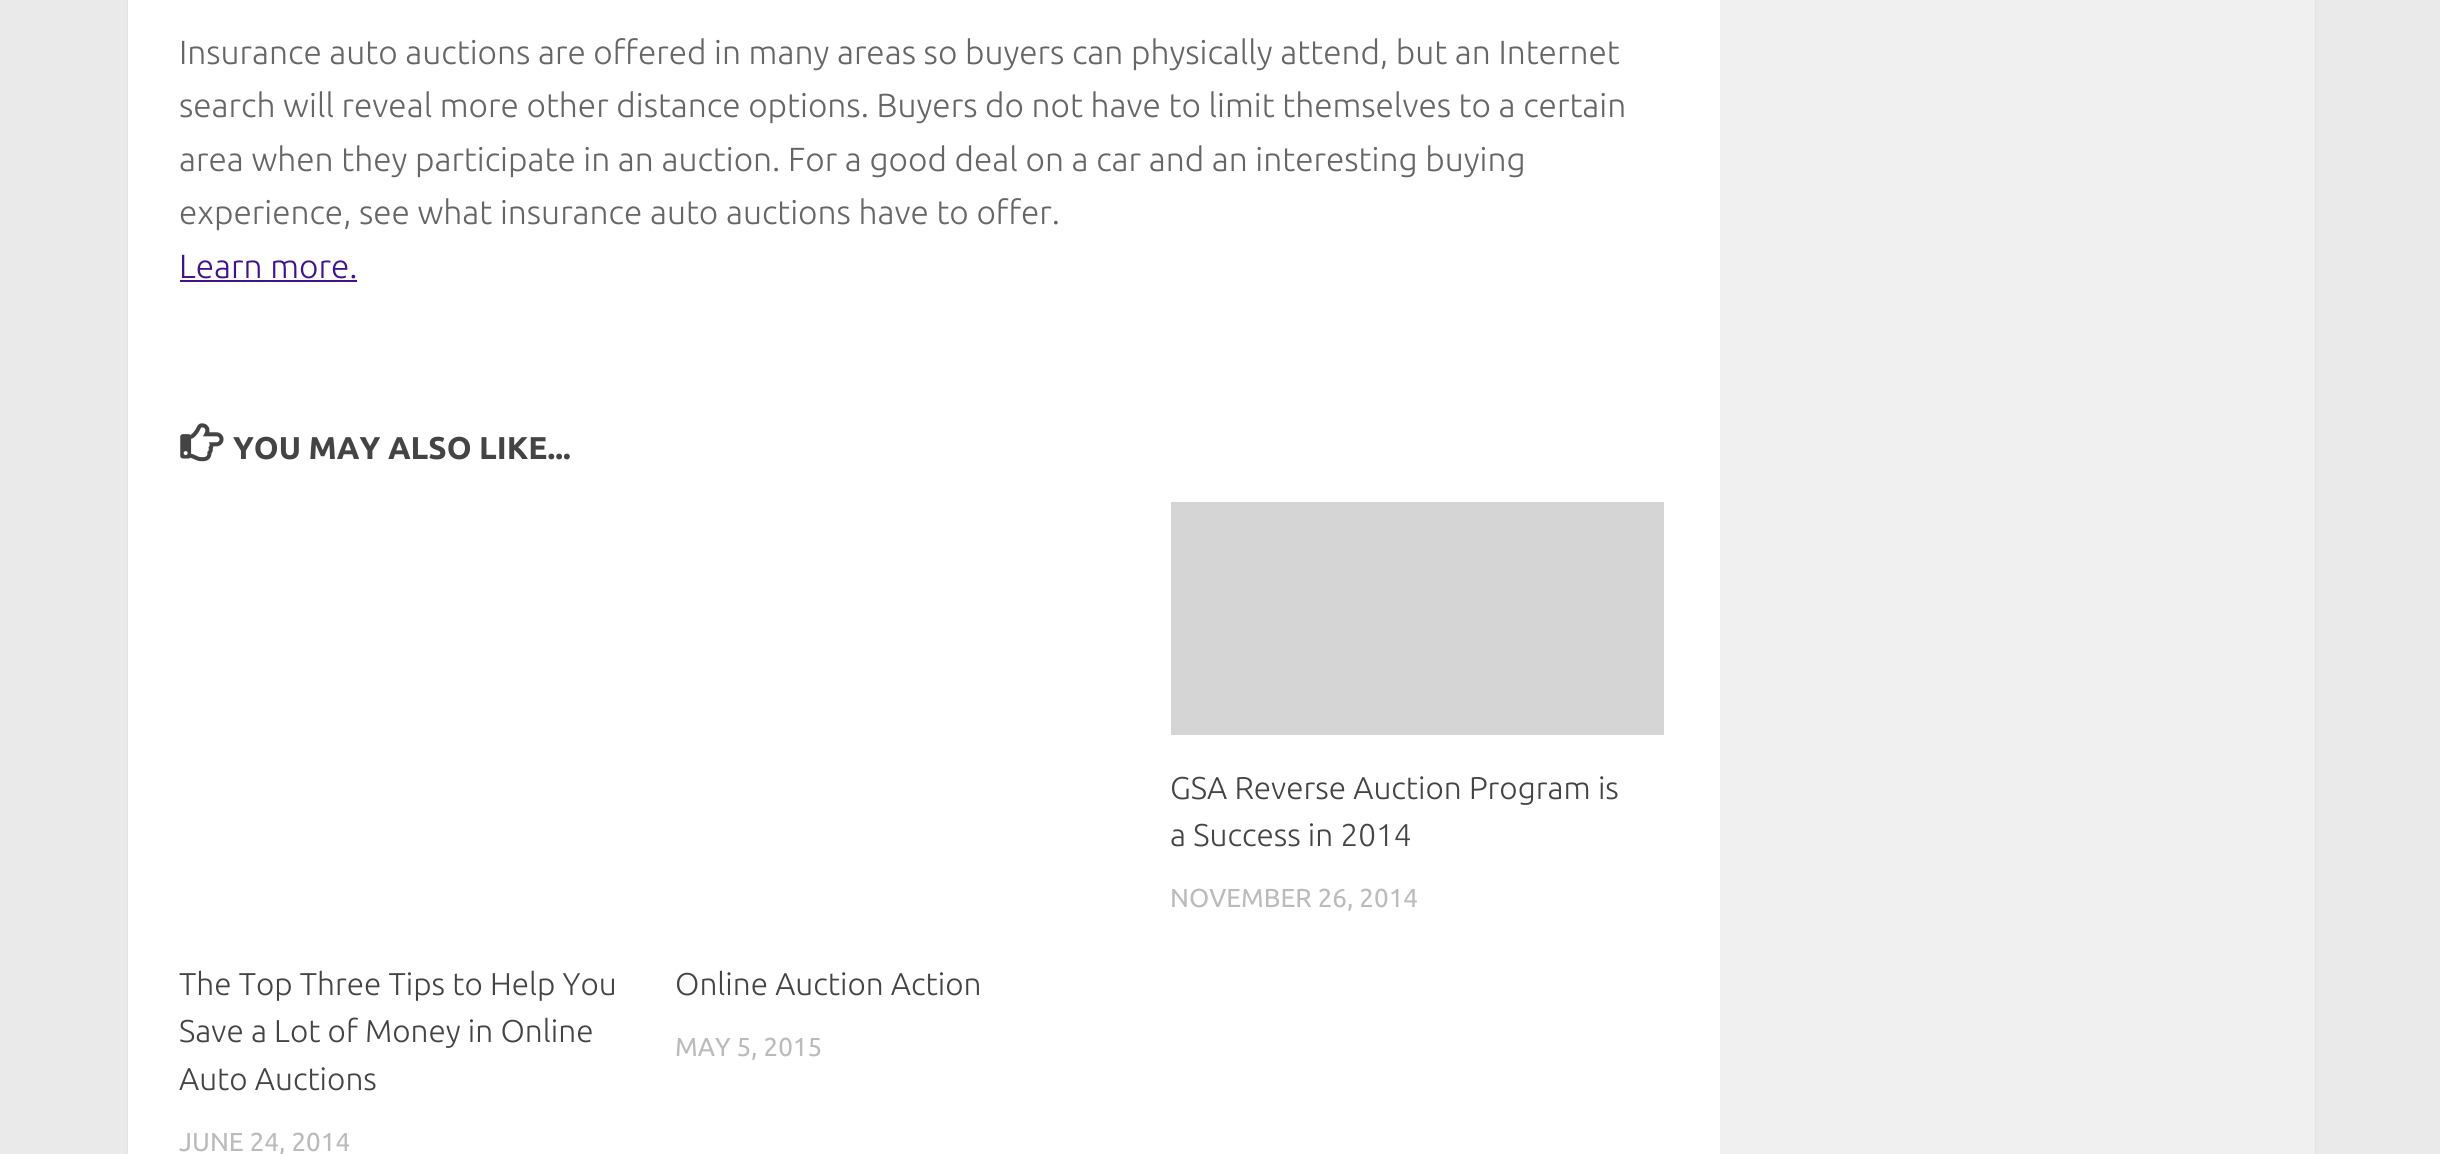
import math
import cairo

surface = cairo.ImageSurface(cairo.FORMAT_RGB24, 2440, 1154)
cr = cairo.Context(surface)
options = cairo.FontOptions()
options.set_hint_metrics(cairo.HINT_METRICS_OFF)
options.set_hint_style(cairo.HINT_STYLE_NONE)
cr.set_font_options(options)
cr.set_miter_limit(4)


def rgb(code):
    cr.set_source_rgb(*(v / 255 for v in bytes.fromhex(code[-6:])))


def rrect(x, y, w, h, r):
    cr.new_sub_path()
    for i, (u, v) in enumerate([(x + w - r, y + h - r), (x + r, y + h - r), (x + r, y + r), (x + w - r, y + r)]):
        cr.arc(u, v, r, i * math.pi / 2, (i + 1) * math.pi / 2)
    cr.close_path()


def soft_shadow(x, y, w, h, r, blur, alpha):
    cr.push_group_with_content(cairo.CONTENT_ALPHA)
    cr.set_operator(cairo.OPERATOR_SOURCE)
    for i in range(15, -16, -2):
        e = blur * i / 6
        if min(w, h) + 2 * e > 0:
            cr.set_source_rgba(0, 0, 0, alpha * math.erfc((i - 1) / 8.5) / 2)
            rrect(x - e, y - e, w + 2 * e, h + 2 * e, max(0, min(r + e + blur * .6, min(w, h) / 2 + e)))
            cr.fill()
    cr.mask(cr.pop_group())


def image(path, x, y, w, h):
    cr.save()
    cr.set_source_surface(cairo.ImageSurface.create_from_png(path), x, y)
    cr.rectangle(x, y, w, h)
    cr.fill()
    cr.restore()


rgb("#eaeaea")
cr.paint()
rgb("#000000")
soft_shadow(128, -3, 2187, 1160, 0, 1, 0.1)
rgb("#ffffff")
cr.rectangle(128, 0, 1592, 1154)
cr.fill()
rgb("#40128b")
cr.rectangle(180, 280, 177, 2)
cr.fill()
image("img/1.png", 180, 423, 44, 39)
rgb("#d5d5d5")
cr.rectangle(1171, 502, 493, 233)
cr.fill()
rgb("#f0f0f0")
cr.rectangle(1720, 0, 595, 1154)
cr.fill()
cr.select_font_face("Ubuntu Light")
cr.set_font_size(33.4)
rgb("#666666")
for x, y, s in [
    (179, 64, "Insurance auto auctions are offered in many areas so buyers can physically attend, but an Internet"),
    (179, 117, "search will reveal more other distance options. Buyers do not have to limit themselves to a certain"),
    (179, 171, "area when they participate in an auction. For a good deal on a car and an interesting buying"),
    (179, 224, "experience, see what insurance auto auctions have to offer."),
]:
    cr.move_to(x, y)
    cr.show_text(s)
rgb("#40128b")
cr.move_to(179, 278)
cr.show_text("Learn more.")
cr.select_font_face("Ubuntu", cairo.FONT_SLANT_NORMAL, cairo.FONT_WEIGHT_BOLD)
cr.set_font_size(31.5)
rgb("#444444")
cr.move_to(233, 459)
cr.show_text("YOU MAY ALSO LIKE...")
cr.select_font_face("Ubuntu Light")
cr.move_to(1170, 799)
cr.show_text("GSA Reverse Auction Program is")
cr.move_to(1170, 846)
cr.show_text("a Success in 2014")
cr.select_font_face("Ubuntu")
cr.set_font_size(26)
rgb("#bbbbbb")
cr.move_to(1170, 907)
cr.show_text("NOVEMBER 26, 2014")
cr.select_font_face("Ubuntu Light")
cr.set_font_size(31.5)
rgb("#444444")
for x, y, s in [
    (179, 995, "The Top Three Tips to Help You"),
    (179, 1042, "Save a Lot of Money in Online"),
    (179, 1090, "Auto Auctions"),
]:
    cr.move_to(x, y)
    cr.show_text(s)
cr.select_font_face("Ubuntu")
cr.set_font_size(26)
rgb("#bbbbbb")
cr.move_to(179, 1151)
cr.show_text("JUNE 24, 2014")
cr.select_font_face("Ubuntu Light")
cr.set_font_size(31.5)
rgb("#444444")
cr.move_to(675, 995)
cr.show_text("Online Auction Action")
cr.select_font_face("Ubuntu")
cr.set_font_size(26)
rgb("#bbbbbb")
cr.move_to(675, 1056)
cr.show_text("MAY 5, 2015")
surface.write_to_png("page.png")
